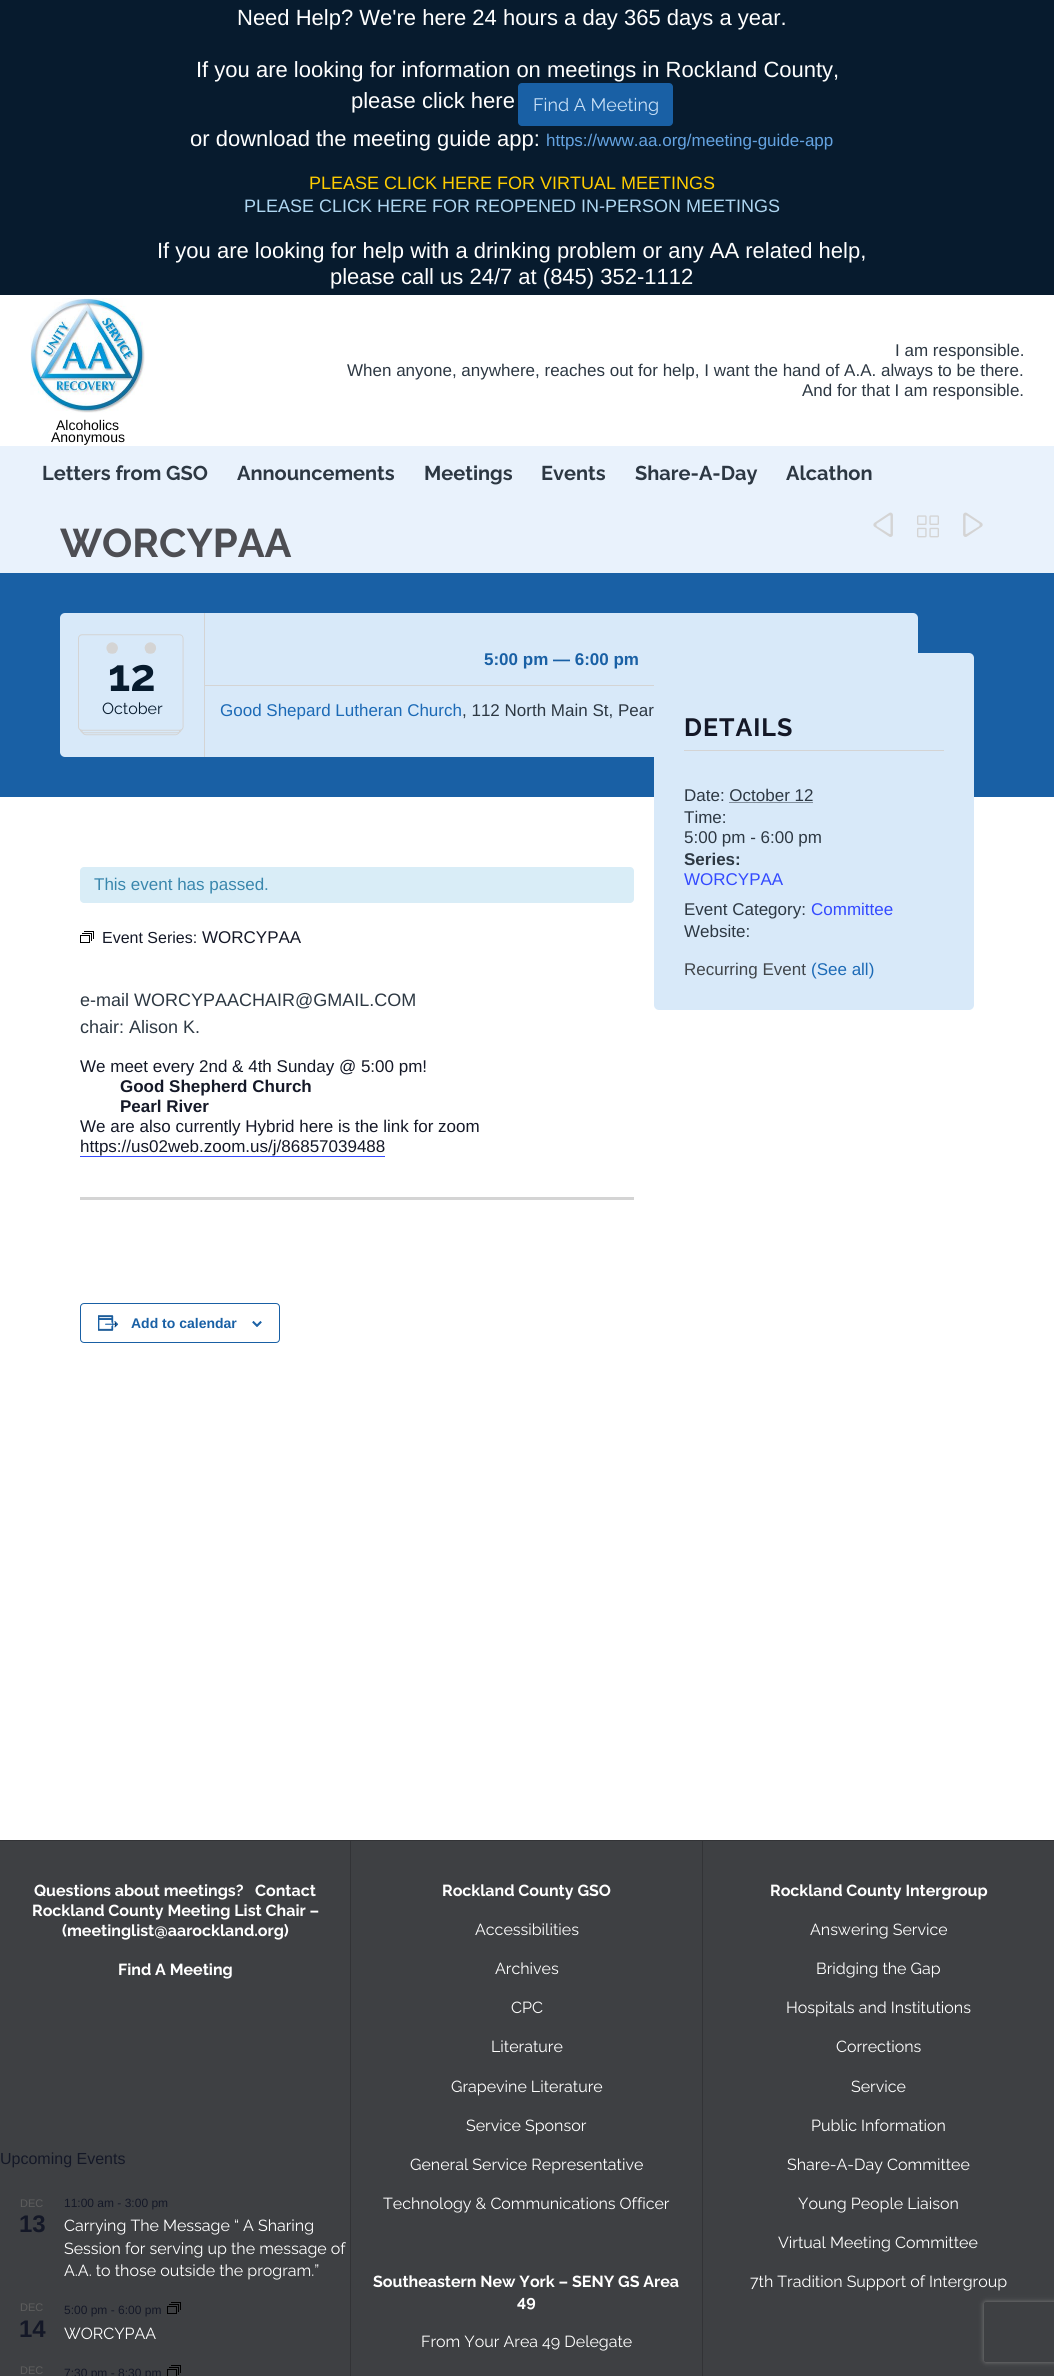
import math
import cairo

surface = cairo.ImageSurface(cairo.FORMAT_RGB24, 1054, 2376)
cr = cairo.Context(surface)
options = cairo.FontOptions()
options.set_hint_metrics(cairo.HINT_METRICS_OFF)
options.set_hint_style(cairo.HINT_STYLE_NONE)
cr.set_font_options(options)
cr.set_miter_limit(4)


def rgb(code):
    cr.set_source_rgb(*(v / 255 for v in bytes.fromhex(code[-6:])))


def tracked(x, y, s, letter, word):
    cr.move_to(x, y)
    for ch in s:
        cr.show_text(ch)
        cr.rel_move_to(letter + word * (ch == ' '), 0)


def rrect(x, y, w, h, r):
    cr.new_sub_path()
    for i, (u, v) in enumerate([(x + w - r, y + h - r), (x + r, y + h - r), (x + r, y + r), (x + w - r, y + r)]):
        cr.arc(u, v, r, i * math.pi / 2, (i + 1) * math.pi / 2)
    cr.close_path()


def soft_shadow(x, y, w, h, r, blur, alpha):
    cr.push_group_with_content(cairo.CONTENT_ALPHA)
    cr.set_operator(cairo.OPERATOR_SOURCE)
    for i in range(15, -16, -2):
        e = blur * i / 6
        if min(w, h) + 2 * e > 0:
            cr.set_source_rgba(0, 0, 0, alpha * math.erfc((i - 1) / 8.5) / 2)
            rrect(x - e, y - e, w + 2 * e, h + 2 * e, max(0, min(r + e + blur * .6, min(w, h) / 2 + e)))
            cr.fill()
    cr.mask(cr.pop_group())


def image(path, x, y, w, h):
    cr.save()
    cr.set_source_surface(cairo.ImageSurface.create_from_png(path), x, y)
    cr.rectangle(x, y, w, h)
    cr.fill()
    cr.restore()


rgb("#ffffff")
cr.paint()
rgb("#071b2e")
cr.rectangle(0, 0, 1054, 295)
cr.fill()
rgb("#1960a5")
rrect(518, 83, 155, 43, 4)
cr.fill()
image("img/1.png", 30, 298, 115, 115)
rgb("#e9f2fc")
cr.rectangle(0, 446, 1054, 127)
cr.fill()
image("img/2.png", 873, 512, 20, 25)
image("img/3.png", 917, 515, 22, 23)
image("img/4.png", 963, 512, 20, 25)
rgb("#1960a5")
cr.rectangle(0, 573, 1054, 224)
cr.fill()
rgb("#d8e9f9")
rrect(60, 613, 858, 144, 5)
cr.fill()
rgb("#d4d4d4")
cr.rectangle(204, 613, 1, 144)
cr.fill()
image("img/5.png", 78, 634, 106, 102)
cr.rectangle(205, 685, 449, 1)
cr.fill()
rgb("#d8e9f9")
rrect(654, 653, 320, 357, 5)
cr.fill()
rgb("#d4d4d4")
cr.rectangle(684, 750, 260, 1)
cr.fill()
cr.new_path()
cr.move_to(729.5, 802.5)
cr.line_to(813.5, 802.5)
rgb("#2d3843")
cr.set_line_width(1)
cr.set_dash([1, 1])
cr.stroke()
rgb("#d9edf7")
rrect(80, 867, 554, 36, 4)
cr.fill()
image("img/6.png", 80, 931, 14, 12)
rgb("#334aff")
cr.rectangle(80, 1156, 305, 1)
cr.fill()
rgb("#d4d4d4")
cr.rectangle(80, 1197, 554, 3)
cr.fill()
rrect(80.5, 1303.5, 199, 39, 3.5)
rgb("#1960a5")
cr.set_dash([])
cr.stroke()
image("img/7.png", 98, 1315, 21, 16)
image("img/8.png", 252, 1321, 10, 6)
for x, y, w, h, color in [
    (0, 1841, 1054, 535, "#3e4043"),
    (0, 1840, 1054, 1, "#323336"),
    (350, 1841, 1, 535, "#323336"),
]:
    rgb(color)
    cr.rectangle(x, y, w, h)
    cr.fill()
image("img/9.png", 167, 2302, 14, 12)
image("img/10.png", 167, 2365, 14, 11)
cr.rectangle(702, 1841, 1, 535)
cr.fill()
cr.save()
cr.set_fill_rule(cairo.FILL_RULE_EVEN_ODD)
cr.new_path()
cr.move_to(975, 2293)
cr.line_to(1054, 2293)
cr.line_to(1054, 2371)
cr.line_to(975, 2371)
cr.close_path()
cr.move_to(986, 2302)
cr.line_to(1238, 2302)
cr.curve_to(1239, 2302, 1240, 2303, 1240, 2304)
cr.line_to(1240, 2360)
cr.curve_to(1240, 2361, 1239, 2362, 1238, 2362)
cr.line_to(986, 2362)
cr.curve_to(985, 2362, 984, 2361, 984, 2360)
cr.line_to(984, 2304)
cr.curve_to(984, 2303, 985, 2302, 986, 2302)
cr.close_path()
cr.clip()
rgb("#808080")
soft_shadow(984, 2302, 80, 60, 2, 2.5, 1)
cr.restore()
cr.select_font_face("Liberation Sans")
cr.set_font_size(22)
rgb("#ffffff")
for x, y, s in [
    (237, 25, "Need Help? We're here 24 hours a day 365 days a year."),
    (196, 77, "If you are looking for information on meetings in Rockland County,"),
    (351, 108, "please click here"),
]:
    cr.move_to(x, y)
    cr.show_text(s)
cr.select_font_face("Raleway")
cr.set_font_size(18)
rgb("#c7dff6")
cr.move_to(533, 111)
cr.show_text("Find A Meeting")
cr.select_font_face("Liberation Sans")
cr.set_font_size(22)
rgb("#ffffff")
cr.move_to(190, 146)
cr.show_text("or download the meeting guide app:")
cr.set_font_size(17)
rgb("#64a3e1")
cr.move_to(546, 146)
cr.show_text("https://www.aa.org/meeting-guide-app")
cr.set_font_size(18)
rgb("#ffcc00")
cr.move_to(309, 189)
cr.show_text("PLEASE CLICK HERE FOR VIRTUAL MEETINGS")
rgb("#aed6f1")
cr.move_to(244, 212)
cr.show_text("PLEASE CLICK HERE FOR REOPENED IN-PERSON MEETINGS")
cr.set_font_size(22)
rgb("#ffffff")
cr.move_to(157, 258)
cr.show_text("If you are looking for help with a drinking problem or any AA related help,")
cr.move_to(330, 284)
cr.show_text("please call us 24/7 at (845) 352-1112")
cr.set_font_size(17)
rgb("#2d3843")
for x, y, s in [
    (895, 356, "I am responsible."),
    (347, 376, "When anyone, anywhere, reaches out for help, I want the hand of A.A. always to be there."),
    (802, 396, "And for that I am responsible."),
]:
    cr.move_to(x, y)
    cr.show_text(s)
cr.set_font_size(14)
rgb("#000000")
cr.move_to(56, 430)
cr.show_text("Alcoholics")
cr.move_to(51, 442)
cr.show_text("Anonymous")
cr.select_font_face("Raleway", cairo.FONT_SLANT_NORMAL, cairo.FONT_WEIGHT_BOLD)
cr.set_font_size(20)
rgb("#2d3843")
for x, y, s in [
    (42, 480, "Letters from GSO"),
    (237, 480, "Announcements"),
    (424, 480, "Meetings"),
    (541, 480, "Events"),
    (635, 480, "Share-A-Day"),
    (786, 480, "Alcathon"),
]:
    cr.move_to(x, y)
    cr.show_text(s)
cr.set_font_size(40)
rgb("#4d4e53")
cr.move_to(60, 557)
cr.show_text("WORCYPAA")
cr.set_font_size(45)
rgb("#071b2e")
cr.move_to(108, 691)
cr.show_text("12")
cr.select_font_face("Raleway")
cr.set_font_size(16)
cr.move_to(102, 714)
cr.show_text("October")
cr.select_font_face("Liberation Sans", cairo.FONT_SLANT_NORMAL, cairo.FONT_WEIGHT_BOLD)
cr.set_font_size(17)
rgb("#1960a5")
cr.move_to(484, 665)
cr.show_text("5:00 pm — 6:00 pm")
cr.select_font_face("Liberation Sans")
rgb("#1c6ab6")
cr.move_to(220, 716)
cr.show_text("Good Shepard Lutheran Church")
rgb("#2d3843")
cr.move_to(462, 716)
cr.show_text(", 112 North Main St, Pear")
cr.select_font_face("Raleway", cairo.FONT_SLANT_NORMAL, cairo.FONT_WEIGHT_BOLD)
cr.set_font_size(25)
rgb("#141827")
tracked(684, 736, "DETAILS", 1, 0)
cr.select_font_face("Liberation Sans")
cr.set_font_size(17)
rgb("#2d3843")
for x, y, s in [
    (684, 801, "Date: October 12"),
    (684, 823, "Time:"),
    (684, 843, "5:00 pm - 6:00 pm"),
]:
    cr.move_to(x, y)
    cr.show_text(s)
cr.select_font_face("Liberation Sans", cairo.FONT_SLANT_NORMAL, cairo.FONT_WEIGHT_BOLD)
cr.move_to(684, 865)
cr.show_text("Series:")
cr.select_font_face("Liberation Sans")
rgb("#334aff")
cr.move_to(684, 885)
cr.show_text("WORCYPAA")
rgb("#2d3843")
cr.move_to(684, 915)
cr.show_text("Event Category:")
rgb("#334aff")
cr.move_to(811, 915)
cr.show_text("Committee")
rgb("#2d3843")
cr.move_to(684, 937)
cr.show_text("Website:")
rgb("#41464b")
cr.move_to(684, 975)
cr.show_text("Recurring Event")
rgb("#1c6ab6")
cr.move_to(811, 975)
cr.show_text("(See all)")
rgb("#3a87ad")
cr.move_to(94, 890)
cr.show_text("This event has passed.")
cr.set_font_size(16)
rgb("#141827")
cr.move_to(102, 943)
cr.show_text("Event Series:")
cr.set_font_size(17)
cr.move_to(202, 943)
cr.show_text("WORCYPAA")
cr.set_font_size(18)
rgb("#2d3843")
cr.move_to(80, 1006)
cr.show_text("e-mail WORCYPAACHAIR@GMAIL.COM")
cr.move_to(80, 1033)
cr.show_text("chair: Alison K.")
cr.set_font_size(17)
rgb("#141827")
cr.move_to(80, 1072)
cr.show_text("We meet every 2nd & 4th Sunday @ 5:00 pm!")
cr.select_font_face("Liberation Sans", cairo.FONT_SLANT_NORMAL, cairo.FONT_WEIGHT_BOLD)
cr.move_to(120, 1092)
cr.show_text("Good Shepherd Church")
cr.move_to(120, 1112)
cr.show_text("Pearl River")
cr.select_font_face("Liberation Sans")
cr.move_to(80, 1132)
cr.show_text("We are also currently Hybrid here is the link for zoom")
cr.move_to(80, 1152)
cr.show_text("https://us02web.zoom.us/j/86857039488")
cr.select_font_face("Liberation Sans", cairo.FONT_SLANT_NORMAL, cairo.FONT_WEIGHT_BOLD)
cr.set_font_size(14)
rgb("#1960a5")
cr.move_to(131, 1328)
cr.show_text("Add to calendar")
cr.select_font_face("Raleway", cairo.FONT_SLANT_NORMAL, cairo.FONT_WEIGHT_BOLD)
cr.set_font_size(16)
rgb("#ffffff")
for x, y, s in [
    (34, 1896, "Questions about meetings?   Contact"),
    (32, 1916, "Rockland County Meeting List Chair –"),
    (62, 1936, "(meetinglist@aarockland.org)"),
    (118, 1975, "Find A Meeting"),
]:
    cr.move_to(x, y)
    cr.show_text(s)
cr.select_font_face("Liberation Sans")
rgb("#141827")
cr.move_to(0, 2164)
cr.show_text("Upcoming Events")
cr.set_font_size(11)
rgb("#5d5d5d")
cr.move_to(20, 2207)
cr.show_text("DEC")
cr.select_font_face("Liberation Sans", cairo.FONT_SLANT_NORMAL, cairo.FONT_WEIGHT_BOLD)
cr.set_font_size(24)
rgb("#141827")
cr.move_to(19, 2232)
cr.show_text("13")
cr.select_font_face("Liberation Sans")
cr.set_font_size(12)
cr.move_to(64, 2207)
cr.show_text("11:00 am - 3:00 pm")
cr.select_font_face("Raleway")
cr.set_font_size(16)
rgb("#ffffff")
for x, y, s in [
    (64, 2231, "Carrying The Message “ A Sharing"),
    (64, 2254, "Session for serving up the message of"),
    (64, 2276, "A.A. to those outside the program.”"),
]:
    cr.move_to(x, y)
    cr.show_text(s)
cr.select_font_face("Liberation Sans")
cr.set_font_size(11)
rgb("#5d5d5d")
cr.move_to(20, 2311)
cr.show_text("DEC")
cr.select_font_face("Liberation Sans", cairo.FONT_SLANT_NORMAL, cairo.FONT_WEIGHT_BOLD)
cr.set_font_size(24)
rgb("#141827")
cr.move_to(19, 2337)
cr.show_text("14")
cr.select_font_face("Liberation Sans")
cr.set_font_size(12)
cr.move_to(64, 2314)
cr.show_text("5:00 pm - 6:00 pm")
cr.select_font_face("Raleway")
cr.set_font_size(16)
rgb("#ffffff")
cr.move_to(64, 2339)
cr.show_text("WORCYPAA")
cr.select_font_face("Liberation Sans")
cr.set_font_size(11)
rgb("#5d5d5d")
cr.move_to(20, 2374)
cr.show_text("DEC")
cr.set_font_size(12)
rgb("#141827")
cr.move_to(64, 2377)
cr.show_text("7:30 pm - 8:30 pm")
cr.select_font_face("Raleway", cairo.FONT_SLANT_NORMAL, cairo.FONT_WEIGHT_BOLD)
cr.set_font_size(16)
rgb("#ffffff")
cr.move_to(442, 1896)
cr.show_text("Rockland County GSO")
cr.select_font_face("Raleway")
for x, y, s in [
    (475, 1935, "Accessibilities"),
    (495, 1974, "Archives"),
    (511, 2013, "CPC"),
    (491, 2052, "Literature"),
    (451, 2092, "Grapevine Literature"),
    (466, 2131, "Service Sponsor"),
    (410, 2170, "General Service Representative"),
    (383, 2209, "Technology & Communications Officer"),
]:
    cr.move_to(x, y)
    cr.show_text(s)
cr.select_font_face("Raleway", cairo.FONT_SLANT_NORMAL, cairo.FONT_WEIGHT_BOLD)
cr.move_to(373, 2287)
cr.show_text("Southeastern New York – SENY GS Area")
cr.move_to(517, 2307)
cr.show_text("49")
cr.select_font_face("Raleway")
cr.move_to(421, 2347)
cr.show_text("From Your Area 49 Delegate")
cr.select_font_face("Raleway", cairo.FONT_SLANT_NORMAL, cairo.FONT_WEIGHT_BOLD)
cr.move_to(770, 1896)
cr.show_text("Rockland County Intergroup")
cr.select_font_face("Raleway")
for x, y, s in [
    (810, 1935, "Answering Service"),
    (816, 1974, "Bridging the Gap"),
    (786, 2013, "Hospitals and Institutions"),
    (836, 2052, "Corrections"),
    (851, 2092, "Service"),
    (811, 2131, "Public Information"),
    (787, 2170, "Share-A-Day Committee"),
    (798, 2209, "Young People Liaison"),
    (778, 2248, "Virtual Meeting Committee"),
    (750, 2287, "7th Tradition Support of Intergroup"),
]:
    cr.move_to(x, y)
    cr.show_text(s)
surface.write_to_png("page.png")
